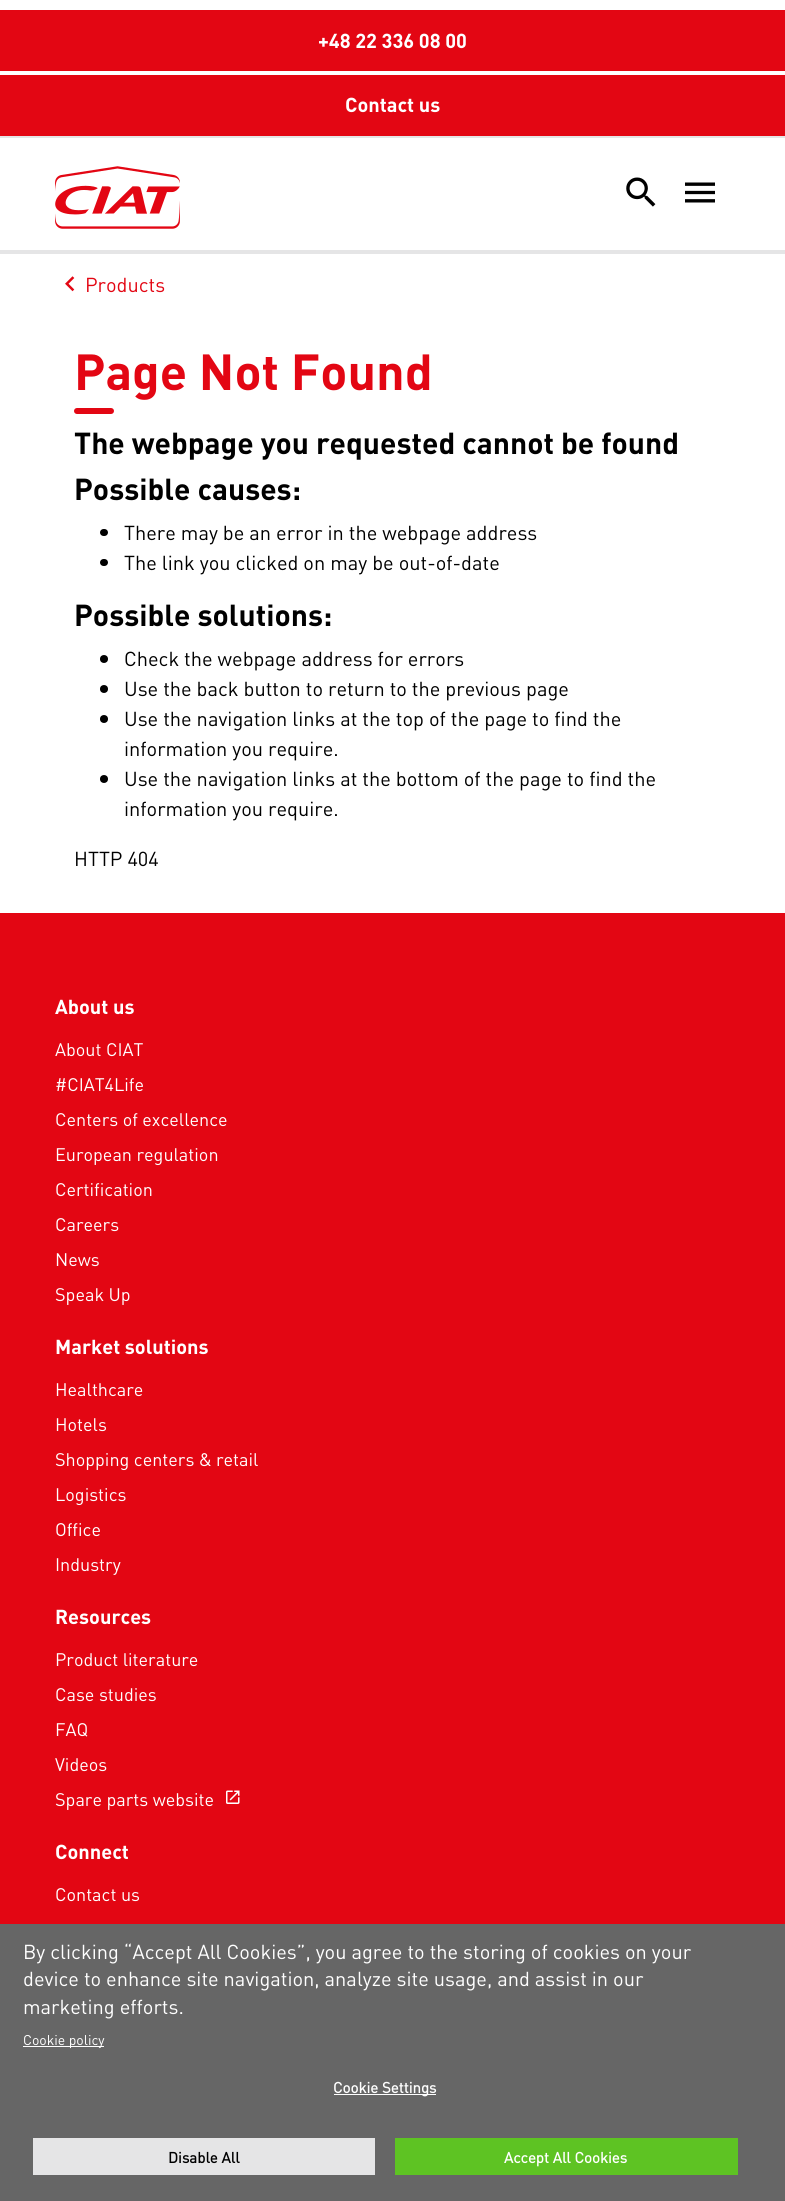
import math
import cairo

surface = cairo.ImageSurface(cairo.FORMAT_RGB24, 785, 2201)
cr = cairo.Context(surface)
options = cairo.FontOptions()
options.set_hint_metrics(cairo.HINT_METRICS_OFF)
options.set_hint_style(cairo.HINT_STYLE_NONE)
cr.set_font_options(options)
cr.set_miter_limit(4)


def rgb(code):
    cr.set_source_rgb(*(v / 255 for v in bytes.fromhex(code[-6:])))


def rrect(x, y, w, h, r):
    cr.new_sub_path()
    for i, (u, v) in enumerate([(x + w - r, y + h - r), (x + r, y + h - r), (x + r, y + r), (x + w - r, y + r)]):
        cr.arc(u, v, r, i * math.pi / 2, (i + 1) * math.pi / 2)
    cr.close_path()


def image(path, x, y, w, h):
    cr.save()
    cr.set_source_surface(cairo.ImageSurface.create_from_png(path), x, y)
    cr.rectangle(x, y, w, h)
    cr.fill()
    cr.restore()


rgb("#ffffff")
cr.paint()
for x, y, w, h, color in [
    (0, 250, 785, 4, "#e5e5e6"),
    (0, 136, 785, 2, "#e5e5e6"),
    (0, 10, 785, 61, "#e30613"),
    (0, 75, 785, 61, "#e30613"),
]:
    rgb(color)
    cr.rectangle(x, y, w, h)
    cr.fill()
image("img/1.png", 55, 166, 125, 63)
image("img/2.png", 626, 177, 30, 30)
image("img/3.png", 685, 182, 30, 21)
image("img/4.png", 65, 276, 10, 16)
rrect(74, 408, 40, 6, 3)
cr.fill()
rgb("#000000")
rrect(100, 529, 8, 7, 3.5)
cr.fill()
rrect(100, 559, 8, 7, 3.5)
cr.fill()
cr.arc(104, 659, 4, 0, 2 * math.pi)
cr.fill()
cr.arc(104, 689, 4, 0, 2 * math.pi)
cr.fill()
cr.arc(104, 719, 4, 0, 2 * math.pi)
cr.fill()
cr.arc(104, 779, 4, 0, 2 * math.pi)
cr.fill()
rgb("#e30613")
cr.rectangle(0, 913, 785, 1011)
cr.fill()
image("img/5.png", 226, 1790, 14, 14)
for x, y, w, h, color in [
    (0, 1924, 785, 277, "#666666"),
    (23, 2046, 81, 1, "#ffffff"),
    (334, 2094, 102, 1, "#ffffff"),
    (33, 2138, 342, 37, "#e5e5e6"),
    (395, 2138, 343, 37, "#5ec323"),
]:
    rgb(color)
    cr.rectangle(x, y, w, h)
    cr.fill()
cr.select_font_face("DIN", cairo.FONT_SLANT_NORMAL, cairo.FONT_WEIGHT_BOLD)
cr.set_font_size(20)
rgb("#ffffff")
cr.move_to(318, 48)
cr.show_text("+48 22 336 08 00")
cr.move_to(345, 112)
cr.show_text("Contact us")
cr.select_font_face("DIN")
rgb("#e30613")
cr.move_to(85, 292)
cr.show_text("Products")
cr.select_font_face("DIN", cairo.FONT_SLANT_NORMAL, cairo.FONT_WEIGHT_BOLD)
cr.set_font_size(50)
cr.move_to(74, 390)
cr.show_text("Page Not Found")
cr.set_font_size(30)
rgb("#000000")
cr.move_to(74, 454)
cr.show_text("The webpage you requested cannot be found")
cr.move_to(74, 500)
cr.show_text("Possible causes:")
cr.select_font_face("DIN")
cr.set_font_size(20)
cr.move_to(124, 540)
cr.show_text("There may be an error in the webpage address")
cr.move_to(124, 570)
cr.show_text("The link you clicked on may be out-of-date")
cr.select_font_face("DIN", cairo.FONT_SLANT_NORMAL, cairo.FONT_WEIGHT_BOLD)
cr.set_font_size(30)
cr.move_to(74, 626)
cr.show_text("Possible solutions:")
cr.select_font_face("DIN")
cr.set_font_size(20)
for x, y, s in [
    (124, 666, "Check the webpage address for errors"),
    (124, 696, "Use the back button to return to the previous page"),
    (124, 726, "Use the navigation links at the top of the page to find the"),
    (124, 756, "information you require."),
    (124, 786, "Use the navigation links at the bottom of the page to find the"),
    (124, 816, "information you require."),
    (74, 866, "HTTP 404"),
]:
    cr.move_to(x, y)
    cr.show_text(s)
cr.select_font_face("DIN", cairo.FONT_SLANT_NORMAL, cairo.FONT_WEIGHT_BOLD)
rgb("#ffffff")
cr.move_to(55, 1014)
cr.show_text("About us")
cr.select_font_face("DIN")
cr.set_font_size(18)
for x, y, s in [
    (55, 1056, "About CIAT"),
    (55, 1091, "#CIAT4Life"),
    (55, 1126, "Centers of excellence"),
    (55, 1161, "European regulation"),
    (55, 1196, "Certification"),
    (55, 1231, "Careers"),
    (55, 1266, "News"),
    (55, 1301, "Speak Up"),
]:
    cr.move_to(x, y)
    cr.show_text(s)
cr.select_font_face("DIN", cairo.FONT_SLANT_NORMAL, cairo.FONT_WEIGHT_BOLD)
cr.set_font_size(20)
cr.move_to(55, 1354)
cr.show_text("Market solutions")
cr.select_font_face("DIN")
cr.set_font_size(18)
for x, y, s in [
    (55, 1396, "Healthcare"),
    (55, 1431, "Hotels"),
    (55, 1466, "Shopping centers & retail"),
    (55, 1501, "Logistics"),
    (55, 1536, "Office"),
    (55, 1571, "Industry"),
]:
    cr.move_to(x, y)
    cr.show_text(s)
cr.select_font_face("DIN", cairo.FONT_SLANT_NORMAL, cairo.FONT_WEIGHT_BOLD)
cr.set_font_size(20)
cr.move_to(55, 1624)
cr.show_text("Resources")
cr.select_font_face("DIN")
cr.set_font_size(18)
for x, y, s in [
    (55, 1666, "Product literature"),
    (55, 1701, "Case studies"),
    (55, 1736, "FAQ"),
    (55, 1771, "Videos"),
    (55, 1806, "Spare parts website"),
]:
    cr.move_to(x, y)
    cr.show_text(s)
cr.select_font_face("DIN", cairo.FONT_SLANT_NORMAL, cairo.FONT_WEIGHT_BOLD)
cr.set_font_size(20)
cr.move_to(55, 1859)
cr.show_text("Connect")
cr.select_font_face("DIN")
cr.set_font_size(18)
cr.move_to(55, 1901)
cr.show_text("Contact us")
cr.set_font_size(20)
for x, y, s in [
    (23, 1959, "By clicking “Accept All Cookies”, you agree to the storing of cookies on your"),
    (23, 1986, "device to enhance site navigation, analyze site usage, and assist in our"),
    (23, 2014, "marketing efforts."),
]:
    cr.move_to(x, y)
    cr.show_text(s)
cr.set_font_size(14)
cr.move_to(23, 2045)
cr.show_text("Cookie policy")
cr.select_font_face("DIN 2", cairo.FONT_SLANT_NORMAL, cairo.FONT_WEIGHT_BOLD)
cr.set_font_size(15)
cr.move_to(333, 2093)
cr.show_text("Cookie Settings")
rgb("#000000")
cr.move_to(168, 2163)
cr.show_text("Disable All")
rgb("#ffffff")
cr.move_to(504, 2163)
cr.show_text("Accept All Cookies")
surface.write_to_png("page.png")
